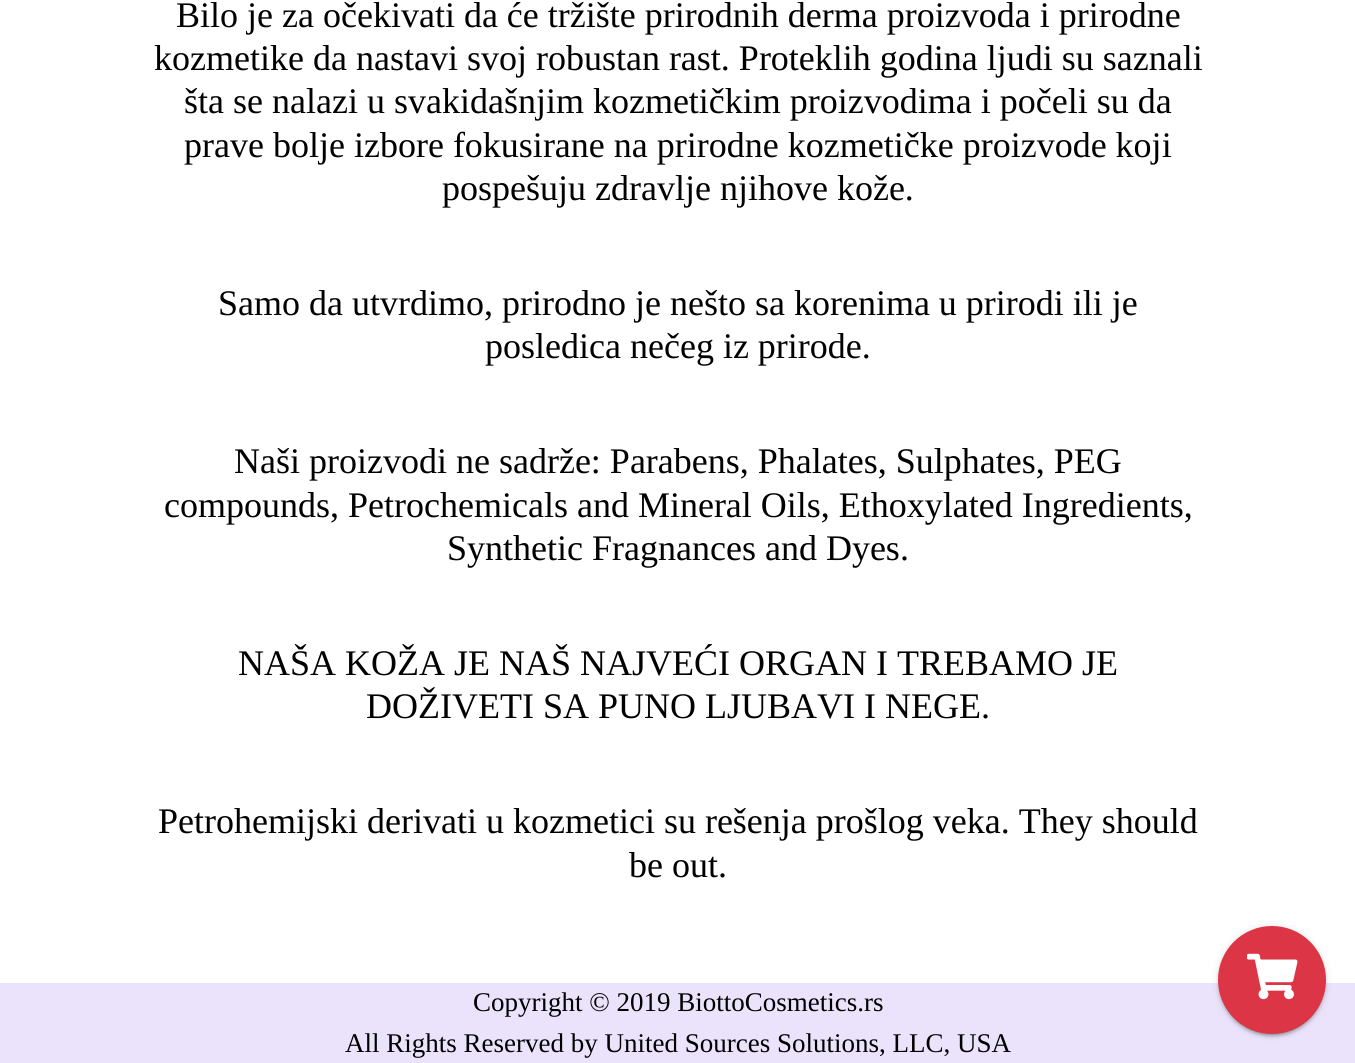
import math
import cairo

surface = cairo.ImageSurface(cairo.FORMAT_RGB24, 1355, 1063)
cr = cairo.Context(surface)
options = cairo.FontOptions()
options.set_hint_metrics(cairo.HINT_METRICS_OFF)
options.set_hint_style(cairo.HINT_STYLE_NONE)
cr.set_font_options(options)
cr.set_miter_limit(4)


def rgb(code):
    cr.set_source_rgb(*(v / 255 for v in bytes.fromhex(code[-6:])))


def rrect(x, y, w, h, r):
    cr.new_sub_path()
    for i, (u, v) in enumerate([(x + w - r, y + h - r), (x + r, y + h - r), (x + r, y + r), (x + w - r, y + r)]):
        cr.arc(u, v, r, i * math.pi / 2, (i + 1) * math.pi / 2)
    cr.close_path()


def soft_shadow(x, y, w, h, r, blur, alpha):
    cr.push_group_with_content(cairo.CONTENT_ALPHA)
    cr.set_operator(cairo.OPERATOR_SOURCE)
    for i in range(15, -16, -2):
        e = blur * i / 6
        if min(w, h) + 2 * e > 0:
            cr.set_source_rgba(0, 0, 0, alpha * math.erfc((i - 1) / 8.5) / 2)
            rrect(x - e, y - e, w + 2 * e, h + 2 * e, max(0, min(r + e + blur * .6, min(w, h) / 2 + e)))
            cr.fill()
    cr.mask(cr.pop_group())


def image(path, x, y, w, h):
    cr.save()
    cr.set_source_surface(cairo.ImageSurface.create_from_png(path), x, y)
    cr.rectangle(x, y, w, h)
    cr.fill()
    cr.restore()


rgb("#ffffff")
cr.paint()
rgb("#ebe3fb")
cr.rectangle(0, 983, 1355, 80)
cr.fill()
rgb("#000000")
soft_shadow(1218, 927, 108, 108, 54, 4, 0.12)
soft_shadow(1218, 929, 108, 108, 54, 1.5, 0.14)
soft_shadow(1221, 933, 102, 102, 51, 1, 0.2)
rgb("#dc3545")
cr.arc(1272, 980, 54, 0, 2 * math.pi)
cr.fill()
image("img/1.png", 1247, 953, 51, 47)
cr.select_font_face("Liberation Serif")
cr.set_font_size(36)
rgb("#000000")
for x, y, s in [
    (176, 27, "Bilo je za očekivati da će tržište prirodnih derma proizvoda i prirodne"),
    (154, 70, "kozmetike da nastavi svoj robustan rast. Proteklih godina ljudi su saznali"),
    (184, 113, "šta se nalazi u svakidašnjim kozmetičkim proizvodima i počeli su da"),
    (184, 157, "prave bolje izbore fokusirane na prirodne kozmetičke proizvode koji"),
    (442, 200, "pospešuju zdravlje njihove kože."),
    (218, 315, "Samo da utvrdimo, prirodno je nešto sa korenima u prirodi ili je"),
    (485, 358, "posledica nečeg iz prirode."),
    (234, 473, "Naši proizvodi ne sadrže: Parabens, Phalates, Sulphates, PEG"),
    (164, 517, "compounds, Petrochemicals and Mineral Oils, Ethoxylated Ingredients,"),
    (447, 560, "Synthetic Fragnances and Dyes."),
    (238, 675, "NAŠA KOŽA JE NAŠ NAJVEĆI ORGAN I TREBAMO JE"),
    (366, 718, "DOŽIVETI SA PUNO LJUBAVI I NEGE."),
    (158, 833, "Petrohemijski derivati u kozmetici su rešenja prošlog veka. They should"),
    (629, 877, "be out."),
]:
    cr.move_to(x, y)
    cr.show_text(s)
cr.set_font_size(27)
cr.move_to(473, 1011)
cr.show_text("Copyright © 2019 BiottoCosmetics.rs")
cr.move_to(345, 1052)
cr.show_text("All Rights Reserved by United Sources Solutions, LLC, USA")
surface.write_to_png("page.png")
